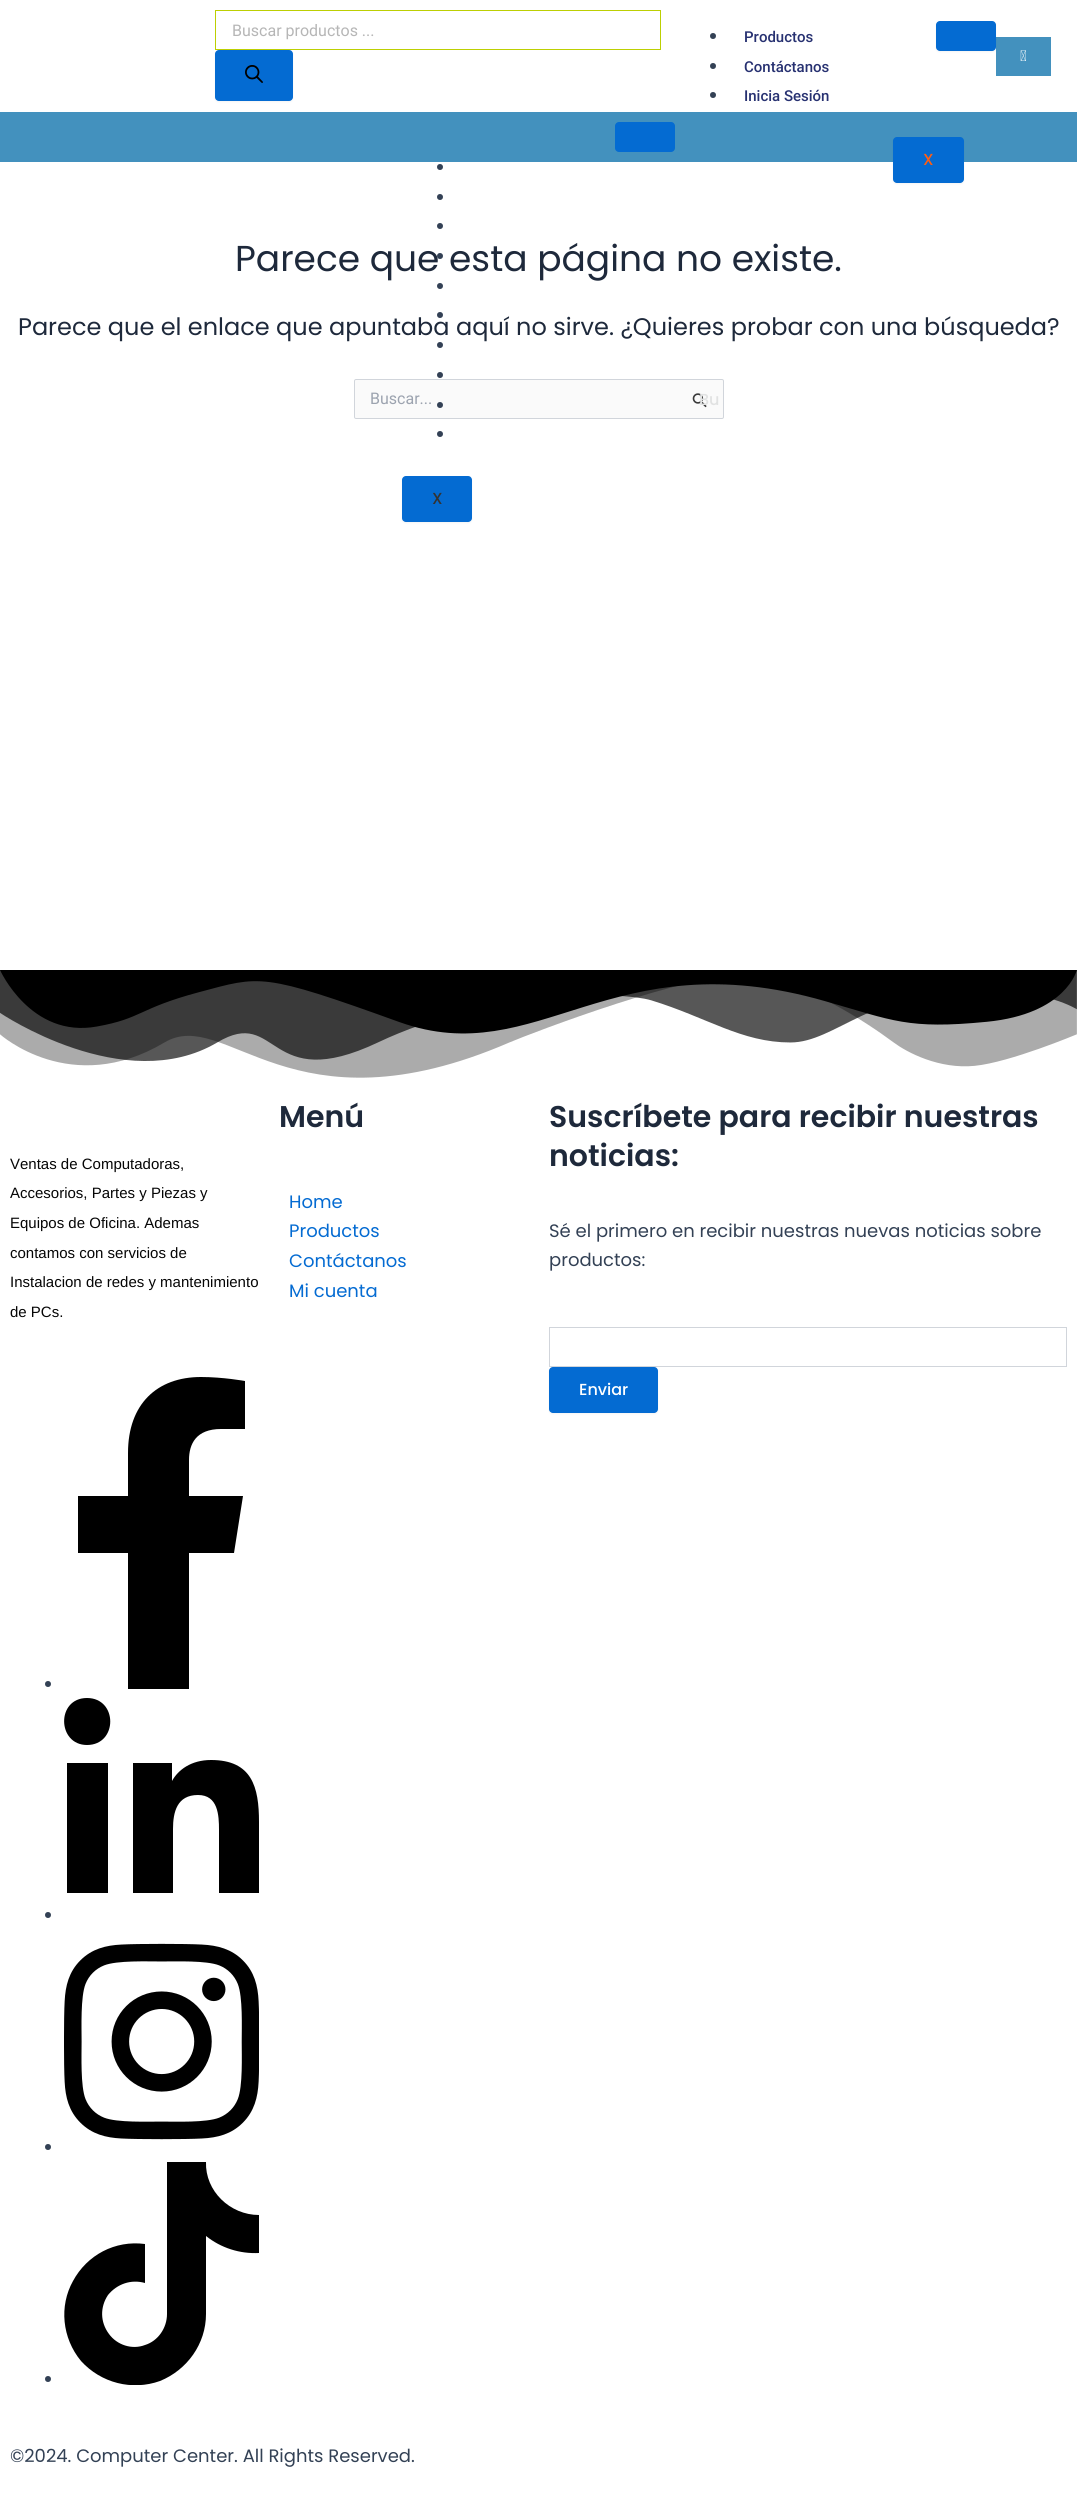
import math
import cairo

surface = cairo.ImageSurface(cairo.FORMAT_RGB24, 1077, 2512)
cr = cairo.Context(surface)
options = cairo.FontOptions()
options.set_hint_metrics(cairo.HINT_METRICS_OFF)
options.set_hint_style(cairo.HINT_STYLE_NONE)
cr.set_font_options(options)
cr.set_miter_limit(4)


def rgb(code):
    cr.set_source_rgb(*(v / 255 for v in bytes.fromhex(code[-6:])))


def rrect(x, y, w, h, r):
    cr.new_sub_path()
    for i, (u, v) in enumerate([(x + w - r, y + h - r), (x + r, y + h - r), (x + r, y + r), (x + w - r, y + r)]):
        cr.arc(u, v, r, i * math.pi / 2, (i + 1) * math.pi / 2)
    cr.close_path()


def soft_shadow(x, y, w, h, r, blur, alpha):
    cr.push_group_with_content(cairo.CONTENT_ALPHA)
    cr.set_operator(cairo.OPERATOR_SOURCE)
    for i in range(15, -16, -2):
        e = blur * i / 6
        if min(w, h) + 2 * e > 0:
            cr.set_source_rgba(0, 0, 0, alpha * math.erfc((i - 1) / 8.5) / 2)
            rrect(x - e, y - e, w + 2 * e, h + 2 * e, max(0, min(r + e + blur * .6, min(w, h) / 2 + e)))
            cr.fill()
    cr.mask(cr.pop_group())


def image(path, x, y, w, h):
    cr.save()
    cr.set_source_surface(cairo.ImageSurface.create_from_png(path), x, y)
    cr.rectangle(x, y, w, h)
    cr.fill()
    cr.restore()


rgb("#ffffff")
cr.paint()
cr.rectangle(215.5, 10.5, 445, 39)
rgb("#bccf02")
cr.set_line_width(1)
cr.stroke()
rgb("#000000")
soft_shadow(215, 51, 78, 51, 4, 1, 0.05)
rgb("#046bd2")
rrect(215, 50, 78, 51, 4)
cr.fill()
image("img/1.png", 245, 65, 18, 18)
rgb("#334155")
cr.arc(713, 36, 3, 0, 2 * math.pi)
cr.fill()
cr.arc(713, 66, 3, 0, 2 * math.pi)
cr.fill()
cr.arc(713, 95, 3, 0, 2 * math.pi)
cr.fill()
rgb("#4391be")
cr.rectangle(0, 112, 1077, 50)
cr.fill()
rgb("#000000")
soft_shadow(893, 138, 71, 46, 4, 1, 0.05)
rgb("#046bd2")
rrect(893, 137, 71, 46, 4)
cr.fill()
rgb("#4391be")
cr.rectangle(996, 37, 55, 39)
cr.fill()
rgb("#000000")
soft_shadow(936, 22, 60, 30, 4, 1, 0.05)
rgb("#046bd2")
rrect(936, 21, 60, 30, 4)
cr.fill()
image("img/2.png", 1020, 50, 6, 11)
rrect(615, 122, 60, 30, 4)
cr.fill()
rgb("#334155")
cr.arc(440, 167, 3, 0, 2 * math.pi)
cr.fill()
cr.arc(440, 197, 3, 0, 2 * math.pi)
cr.fill()
cr.arc(440, 226, 3, 0, 2 * math.pi)
cr.fill()
cr.arc(440, 286, 3, 0, 2 * math.pi)
cr.fill()
cr.arc(440, 345, 3, 0, 2 * math.pi)
cr.fill()
cr.arc(440, 375, 3, 0, 2 * math.pi)
cr.fill()
rgb("#fafafa")
rrect(354.5, 379.5, 369, 39, 1.5)
cr.fill_preserve()
rgb("#d1d5db")
cr.stroke()
rgb("#334155")
cr.arc(440, 405, 3, 0, 2 * math.pi)
cr.fill()
cr.arc(440, 434, 3, 0, 2 * math.pi)
cr.fill()
rgb("#000000")
soft_shadow(402, 477, 70, 46, 4, 1, 0.05)
rgb("#046bd2")
rrect(402, 476, 70, 46, 4)
cr.fill()
image("img/3.png", 692, 393, 15, 15)
image("img/4.png", 0, 970, 1077, 108)
rgb("#334155")
cr.arc(48, 1684, 3, 0, 2 * math.pi)
cr.fill()
rgb("#000000")
cr.new_path()
cr.move_to(234, 1553)
cr.line_to(243, 1496)
cr.line_to(189, 1496)
cr.line_to(189, 1460)
cr.curve_to(189, 1444, 196, 1429, 221, 1429)
cr.line_to(245, 1429)
cr.line_to(245, 1381)
cr.curve_to(245, 1381, 223, 1377, 201, 1377)
cr.curve_to(157, 1377, 128, 1404, 128, 1453)
cr.line_to(128, 1496)
cr.line_to(78, 1496)
cr.line_to(78, 1553)
cr.line_to(128, 1553)
cr.line_to(128, 1689)
cr.line_to(189, 1689)
cr.line_to(189, 1553)
cr.close_path()
cr.fill()
cr.new_path()
cr.move_to(108, 1893)
cr.line_to(67, 1893)
cr.line_to(67, 1763)
cr.line_to(108, 1763)
cr.close_path()
cr.move_to(87, 1745)
cr.curve_to(57, 1745, 56, 1698, 87, 1698)
cr.curve_to(118, 1698, 118, 1745, 87, 1745)
cr.close_path()
cr.move_to(259, 1893)
cr.line_to(219, 1893)
cr.line_to(219, 1830)
cr.curve_to(219, 1815, 218, 1795, 198, 1795)
cr.curve_to(177, 1795, 173, 1812, 173, 1829)
cr.line_to(173, 1893)
cr.line_to(133, 1893)
cr.line_to(133, 1763)
cr.line_to(172, 1763)
cr.line_to(172, 1781)
cr.curve_to(178, 1770, 191, 1760, 211, 1760)
cr.curve_to(252, 1760, 259, 1787, 259, 1822)
cr.close_path()
cr.fill()
rgb("#334155")
cr.arc(48, 1915, 3, 0, 2 * math.pi)
cr.fill()
image("img/5.png", 64, 1943, 195, 197)
cr.arc(48, 2147, 3, 0, 2 * math.pi)
cr.fill()
cr.arc(48, 2379, 3, 0, 2 * math.pi)
cr.fill()
cr.save()
cr.rectangle(64, 2162, 195, 223)
cr.clip()
rgb("#000000")
cr.new_path()
cr.move_to(259, 2253)
cr.curve_to(240, 2254, 221, 2248, 206, 2236)
cr.line_to(206, 2314)
cr.curve_to(206, 2344, 187, 2370, 160, 2381)
cr.curve_to(132, 2391, 101, 2383, 81, 2361)
cr.curve_to(62, 2338, 59, 2306, 73, 2281)
cr.curve_to(87, 2255, 115, 2240, 145, 2244)
cr.line_to(145, 2283)
cr.curve_to(131, 2279, 117, 2284, 108, 2295)
cr.curve_to(100, 2307, 100, 2322, 109, 2334)
cr.curve_to(117, 2345, 132, 2350, 145, 2345)
cr.curve_to(158, 2341, 167, 2328, 167, 2314)
cr.line_to(167, 2162)
cr.line_to(206, 2162)
cr.curve_to(205, 2191, 230, 2215, 259, 2215)
cr.close_path()
cr.fill()
cr.restore()
cr.rectangle(549.5, 1327.5, 517, 39)
rgb("#d1d5db")
cr.stroke()
rgb("#000000")
soft_shadow(549, 1368, 109, 46, 4, 1, 0.05)
rgb("#046bd2")
rrect(549, 1367, 109, 46, 4)
cr.fill()
cr.select_font_face("Roboto")
cr.set_font_size(16)
rgb("#b6b6b6")
cr.move_to(232, 36)
cr.show_text("Buscar productos ...")
cr.select_font_face("Roboto Medium")
cr.set_font_size(15)
rgb("#273171")
for x, y, s in [
    (744, 42, "Productos"),
    (744, 72, "Contáctanos"),
    (744, 101, "Inicia Sesión"),
]:
    cr.move_to(x, y)
    cr.show_text(s)
cr.select_font_face("Poppins Medium")
cr.set_font_size(16)
rgb("#ff5e13")
cr.move_to(923, 165)
cr.show_text("X")
rgb("#333333")
cr.move_to(432, 504)
cr.show_text("X")
cr.select_font_face("Poppins")
cr.set_font_size(36)
rgb("#1e293b")
cr.move_to(235, 271)
cr.show_text("Parece que esta página no existe.")
rgb("#334155")
cr.new_path()
cr.arc(440, 256, 3, 0, 2 * math.pi)
cr.fill()
cr.set_font_size(24)
rgb("#1e293b")
cr.move_to(18, 335)
cr.show_text("Parece que el enlace que apuntaba aquí no sirve. ¿Quieres probar con una búsqueda?")
rgb("#334155")
cr.new_path()
cr.arc(440, 315, 3, 0, 2 * math.pi)
cr.fill()
cr.select_font_face("Roboto")
cr.set_font_size(16)
rgb("#9ca3af")
cr.move_to(370, 404)
cr.show_text("Buscar...")
cr.select_font_face("Poppins Medium")
rgb("#e1e2e2")
cr.move_to(699, 405)
cr.show_text("Bu")
cr.select_font_face("Liberation Sans")
cr.set_font_size(15)
rgb("#050505")
for x, y, s in [
    (10, 1169, "Ventas de Computadoras,"),
    (10, 1198, "Accesorios, Partes y Piezas y"),
    (10, 1228, "Equipos de Oficina. Ademas"),
    (10, 1258, "contamos con servicios de"),
    (10, 1287, "Instalacion de redes y mantenimiento"),
    (10, 1317, "de PCs."),
]:
    cr.move_to(x, y)
    cr.show_text(s)
cr.select_font_face("Poppins SemiBold")
cr.set_font_size(30)
rgb("#1e293b")
cr.move_to(279, 1127)
cr.show_text("Menú")
cr.select_font_face("Poppins")
cr.set_font_size(18)
rgb("#046bd2")
for x, y, s in [
    (289, 1208, "Home"),
    (289, 1237, "Productos"),
    (289, 1267, "Contáctanos"),
    (289, 1297, "Mi cuenta"),
]:
    cr.move_to(x, y)
    cr.show_text(s)
cr.select_font_face("Poppins SemiBold")
cr.set_font_size(30)
rgb("#1e293b")
cr.move_to(549, 1127)
cr.show_text("Suscríbete para recibir nuestras")
cr.move_to(549, 1166)
cr.show_text("noticias:")
cr.select_font_face("Poppins")
cr.set_font_size(18)
rgb("#334155")
cr.move_to(549, 1237)
cr.show_text("Sé el primero en recibir nuestras nuevas noticias sobre")
cr.move_to(549, 1266)
cr.show_text("productos:")
cr.select_font_face("Poppins Medium")
cr.set_font_size(16)
rgb("#ffffff")
cr.move_to(579, 1395)
cr.show_text("Enviar")
cr.select_font_face("Poppins")
cr.set_font_size(18)
rgb("#334155")
cr.move_to(10, 2462)
cr.show_text("©2024. Computer Center. All Rights Reserved.")
surface.write_to_png("page.png")
